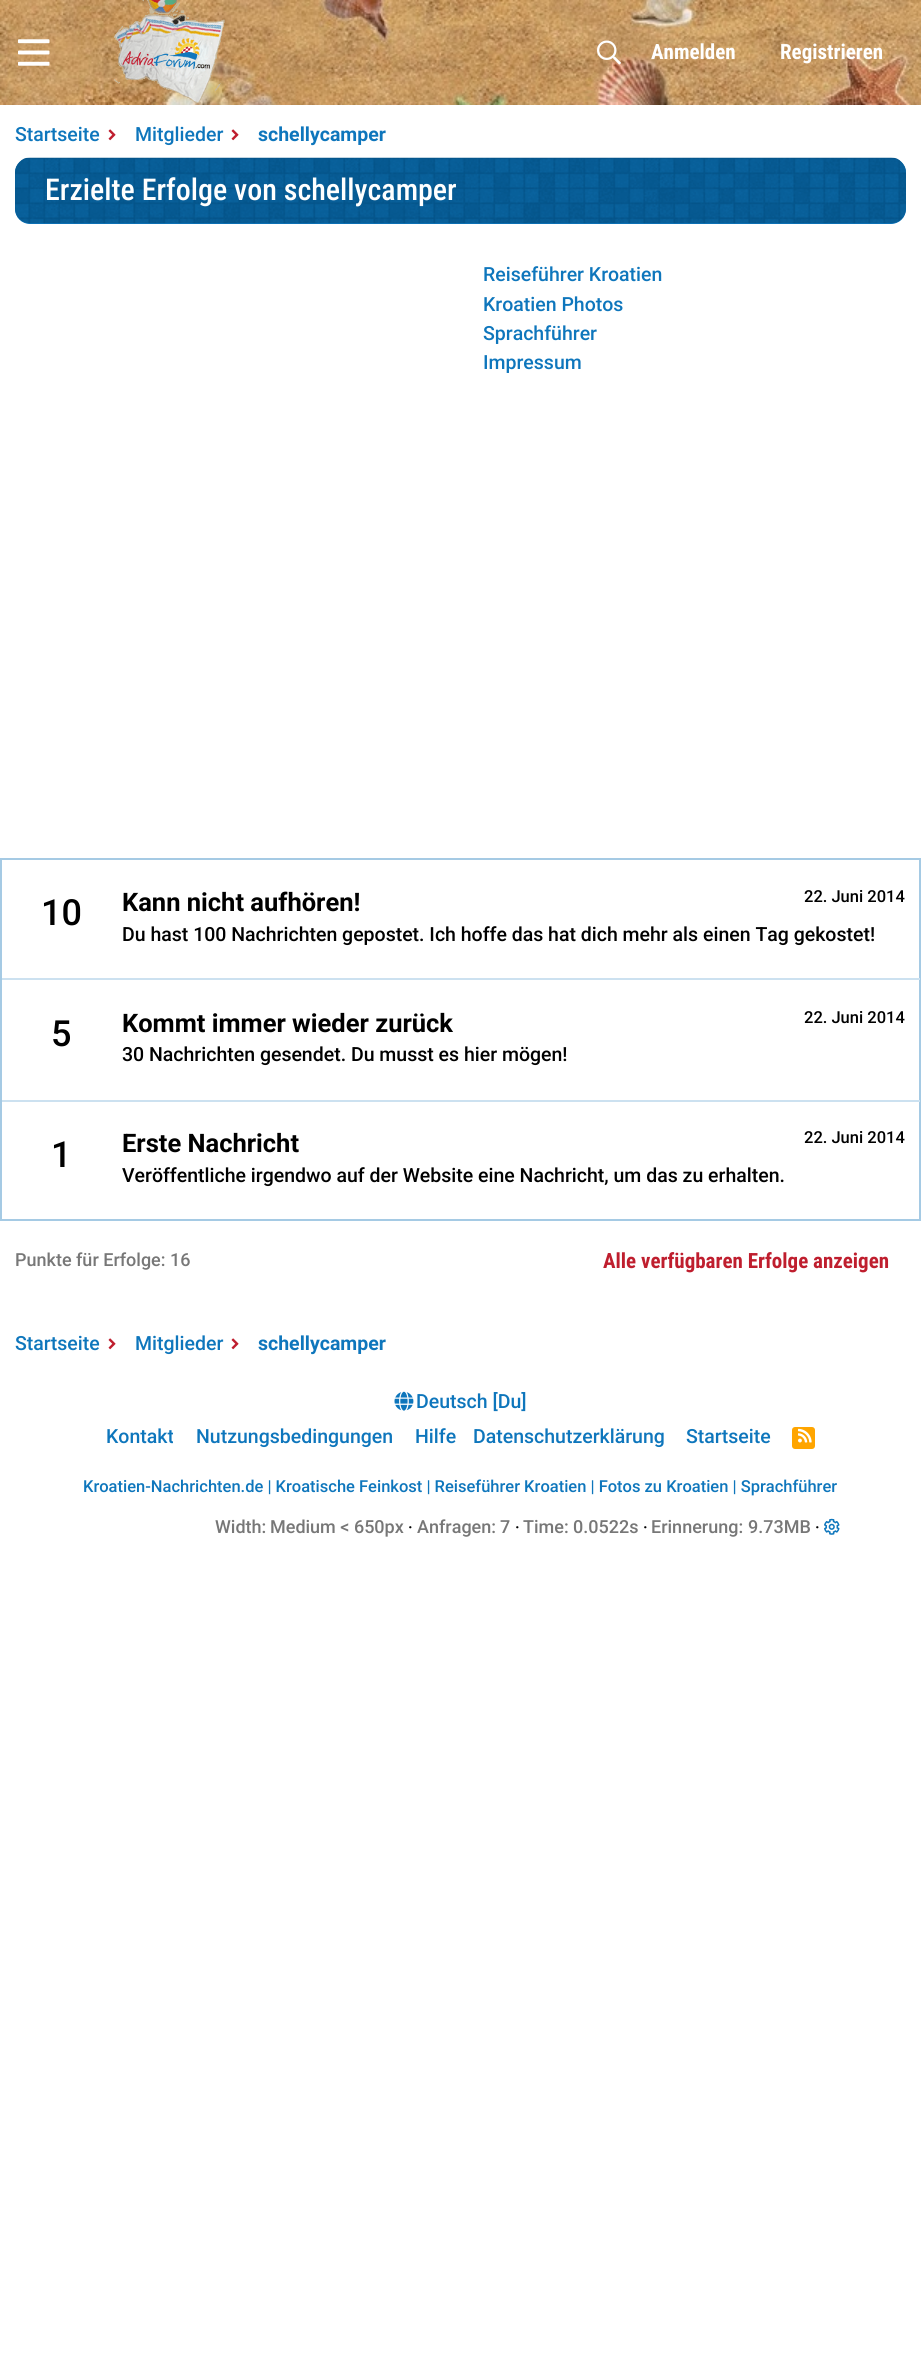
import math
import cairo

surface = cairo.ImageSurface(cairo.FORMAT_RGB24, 921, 2376)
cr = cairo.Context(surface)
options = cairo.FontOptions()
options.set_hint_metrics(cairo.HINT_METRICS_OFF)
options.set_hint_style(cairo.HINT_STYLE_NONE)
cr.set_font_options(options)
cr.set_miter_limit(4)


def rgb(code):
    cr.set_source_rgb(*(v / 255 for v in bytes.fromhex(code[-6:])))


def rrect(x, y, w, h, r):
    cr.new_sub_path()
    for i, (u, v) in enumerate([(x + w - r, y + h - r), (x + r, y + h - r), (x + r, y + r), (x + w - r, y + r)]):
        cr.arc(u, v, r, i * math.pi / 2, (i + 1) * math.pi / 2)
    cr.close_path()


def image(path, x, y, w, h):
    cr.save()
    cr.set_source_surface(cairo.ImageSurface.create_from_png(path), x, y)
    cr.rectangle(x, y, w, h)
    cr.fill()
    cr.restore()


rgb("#ffffff")
cr.paint()
image("img/1.png", 0, 0, 921, 105)
image("img/2.png", 18, 39, 32, 27)
image("img/3.png", 114, 0, 111, 103)
image("img/4.png", 597, 40, 24, 25)
image("img/5.png", 108, 129, 8, 12)
image("img/5.png", 231, 129, 8, 12)
rgb("#0e76bc")
rrect(15, 158, 891, 66, 15)
cr.fill()
image("img/6.png", 15, 157, 891, 67)
cr.rectangle(1, 859, 919, 361)
rgb("#a5cae4")
cr.stroke()
rgb("#cce1f0")
cr.rectangle(2, 978, 918, 2)
cr.fill()
cr.rectangle(2, 1100, 918, 2)
cr.fill()
image("img/5.png", 108, 1338, 8, 12)
image("img/5.png", 231, 1338, 8, 12)
image("img/7.png", 394, 1391, 20, 20)
rgb("#ffa500")
rrect(792, 1427, 23, 22, 3)
cr.fill()
image("img/8.png", 798, 1428, 14, 15)
image("img/9.png", 824, 1518, 16, 17)
cr.select_font_face("Roboto Condensed", cairo.FONT_SLANT_NORMAL, cairo.FONT_WEIGHT_BOLD)
cr.set_font_size(21)
rgb("#ffffff")
cr.move_to(651, 59)
cr.show_text("Anmelden")
cr.move_to(780, 59)
cr.show_text("Registrieren")
cr.select_font_face("Roboto Medium")
cr.set_font_size(19.5)
rgb("#0e76bc")
cr.move_to(15, 141)
cr.show_text("Startseite")
cr.move_to(135, 141)
cr.show_text("Mitglieder")
cr.select_font_face("Roboto", cairo.FONT_SLANT_NORMAL, cairo.FONT_WEIGHT_BOLD)
cr.move_to(258, 141)
cr.show_text("schellycamper")
cr.select_font_face("Roboto Condensed Medium")
cr.set_font_size(30)
rgb("#ffffff")
cr.move_to(45, 200)
cr.show_text("Erzielte Erfolge von schellycamper")
cr.select_font_face("Roboto Medium")
cr.set_font_size(19.5)
rgb("#0e76bc")
for x, y, s in [
    (483, 281, "Reiseführer Kroatien"),
    (483, 311, "Kroatien Photos"),
    (483, 340, "Sprachführer"),
    (483, 369, "Impressum"),
]:
    cr.move_to(x, y)
    cr.show_text(s)
cr.set_font_size(36)
rgb("#000000")
cr.move_to(41, 925)
cr.show_text("10")
cr.select_font_face("Roboto", cairo.FONT_SLANT_NORMAL, cairo.FONT_WEIGHT_BOLD)
cr.set_font_size(25.5)
cr.move_to(122, 911)
cr.show_text("Kann nicht aufhören!")
cr.select_font_face("Roboto Medium")
cr.set_font_size(16.5)
cr.move_to(804, 902)
cr.show_text("22. Juni 2014")
cr.set_font_size(19.5)
cr.move_to(122, 941)
cr.show_text("Du hast 100 Nachrichten gepostet. Ich hoffe das hat dich mehr als einen Tag gekostet!")
cr.set_font_size(36)
cr.move_to(51, 1046)
cr.show_text("5")
cr.select_font_face("Roboto", cairo.FONT_SLANT_NORMAL, cairo.FONT_WEIGHT_BOLD)
cr.set_font_size(25.5)
cr.move_to(122, 1032)
cr.show_text("Kommt immer wieder zurück")
cr.select_font_face("Roboto Medium")
cr.set_font_size(16.5)
cr.move_to(804, 1023)
cr.show_text("22. Juni 2014")
cr.set_font_size(19.5)
cr.move_to(122, 1061)
cr.show_text("30 Nachrichten gesendet. Du musst es hier mögen!")
cr.set_font_size(36)
cr.move_to(51, 1167)
cr.show_text("1")
cr.select_font_face("Roboto", cairo.FONT_SLANT_NORMAL, cairo.FONT_WEIGHT_BOLD)
cr.set_font_size(25.5)
cr.move_to(122, 1152)
cr.show_text("Erste Nachricht")
cr.select_font_face("Roboto Medium")
cr.set_font_size(16.5)
cr.move_to(804, 1143)
cr.show_text("22. Juni 2014")
cr.set_font_size(19.5)
cr.move_to(122, 1182)
cr.show_text("Veröffentliche irgendwo auf der Website eine Nachricht, um das zu erhalten.")
cr.set_font_size(18)
rgb("#777777")
cr.move_to(15, 1266)
cr.show_text("Punkte für Erfolge: 16")
cr.select_font_face("Roboto Condensed", cairo.FONT_SLANT_NORMAL, cairo.FONT_WEIGHT_BOLD)
cr.set_font_size(21)
rgb("#bf1e2e")
cr.move_to(603, 1268)
cr.show_text("Alle verfügbaren Erfolge anzeigen")
cr.select_font_face("Roboto Medium")
cr.set_font_size(19.5)
rgb("#0e76bc")
cr.move_to(15, 1350)
cr.show_text("Startseite")
cr.move_to(135, 1350)
cr.show_text("Mitglieder")
cr.select_font_face("Roboto", cairo.FONT_SLANT_NORMAL, cairo.FONT_WEIGHT_BOLD)
cr.move_to(258, 1350)
cr.show_text("schellycamper")
cr.select_font_face("Roboto Medium")
for x, y, s in [
    (416, 1408, "Deutsch [Du]"),
    (106, 1443, "Kontakt"),
    (196, 1443, "Nutzungsbedingungen"),
    (415, 1443, "Hilfe"),
    (473, 1443, "Datenschutzerklärung"),
    (686, 1443, "Startseite"),
]:
    cr.move_to(x, y)
    cr.show_text(s)
cr.set_font_size(16.5)
cr.move_to(83, 1492)
cr.show_text("Kroatien-Nachrichten.de | Kroatische Feinkost | Reiseführer Kroatien | Fotos zu Kroatien | Sprachführer")
cr.set_font_size(18)
rgb("#777777")
cr.move_to(215, 1533)
cr.show_text("Width:")
cr.move_to(270, 1533)
cr.show_text("Medium < 650px")
cr.set_font_size(16.5)
rgb("#000000")
cr.move_to(408, 1533)
cr.show_text("·")
cr.set_font_size(18)
rgb("#777777")
cr.move_to(417, 1533)
cr.show_text("Anfragen:")
cr.move_to(500, 1533)
cr.show_text("7")
cr.set_font_size(16.5)
rgb("#000000")
cr.move_to(515, 1533)
cr.show_text("·")
cr.set_font_size(18)
rgb("#777777")
cr.move_to(523, 1533)
cr.show_text("Time:")
cr.move_to(573, 1533)
cr.show_text("0.0522s")
cr.set_font_size(16.5)
rgb("#000000")
cr.move_to(643, 1533)
cr.show_text("·")
cr.set_font_size(18)
rgb("#777777")
cr.move_to(651, 1533)
cr.show_text("Erinnerung:")
cr.move_to(748, 1533)
cr.show_text("9.73MB")
cr.set_font_size(16.5)
rgb("#000000")
cr.move_to(815, 1533)
cr.show_text("·")
surface.write_to_png("page.png")
